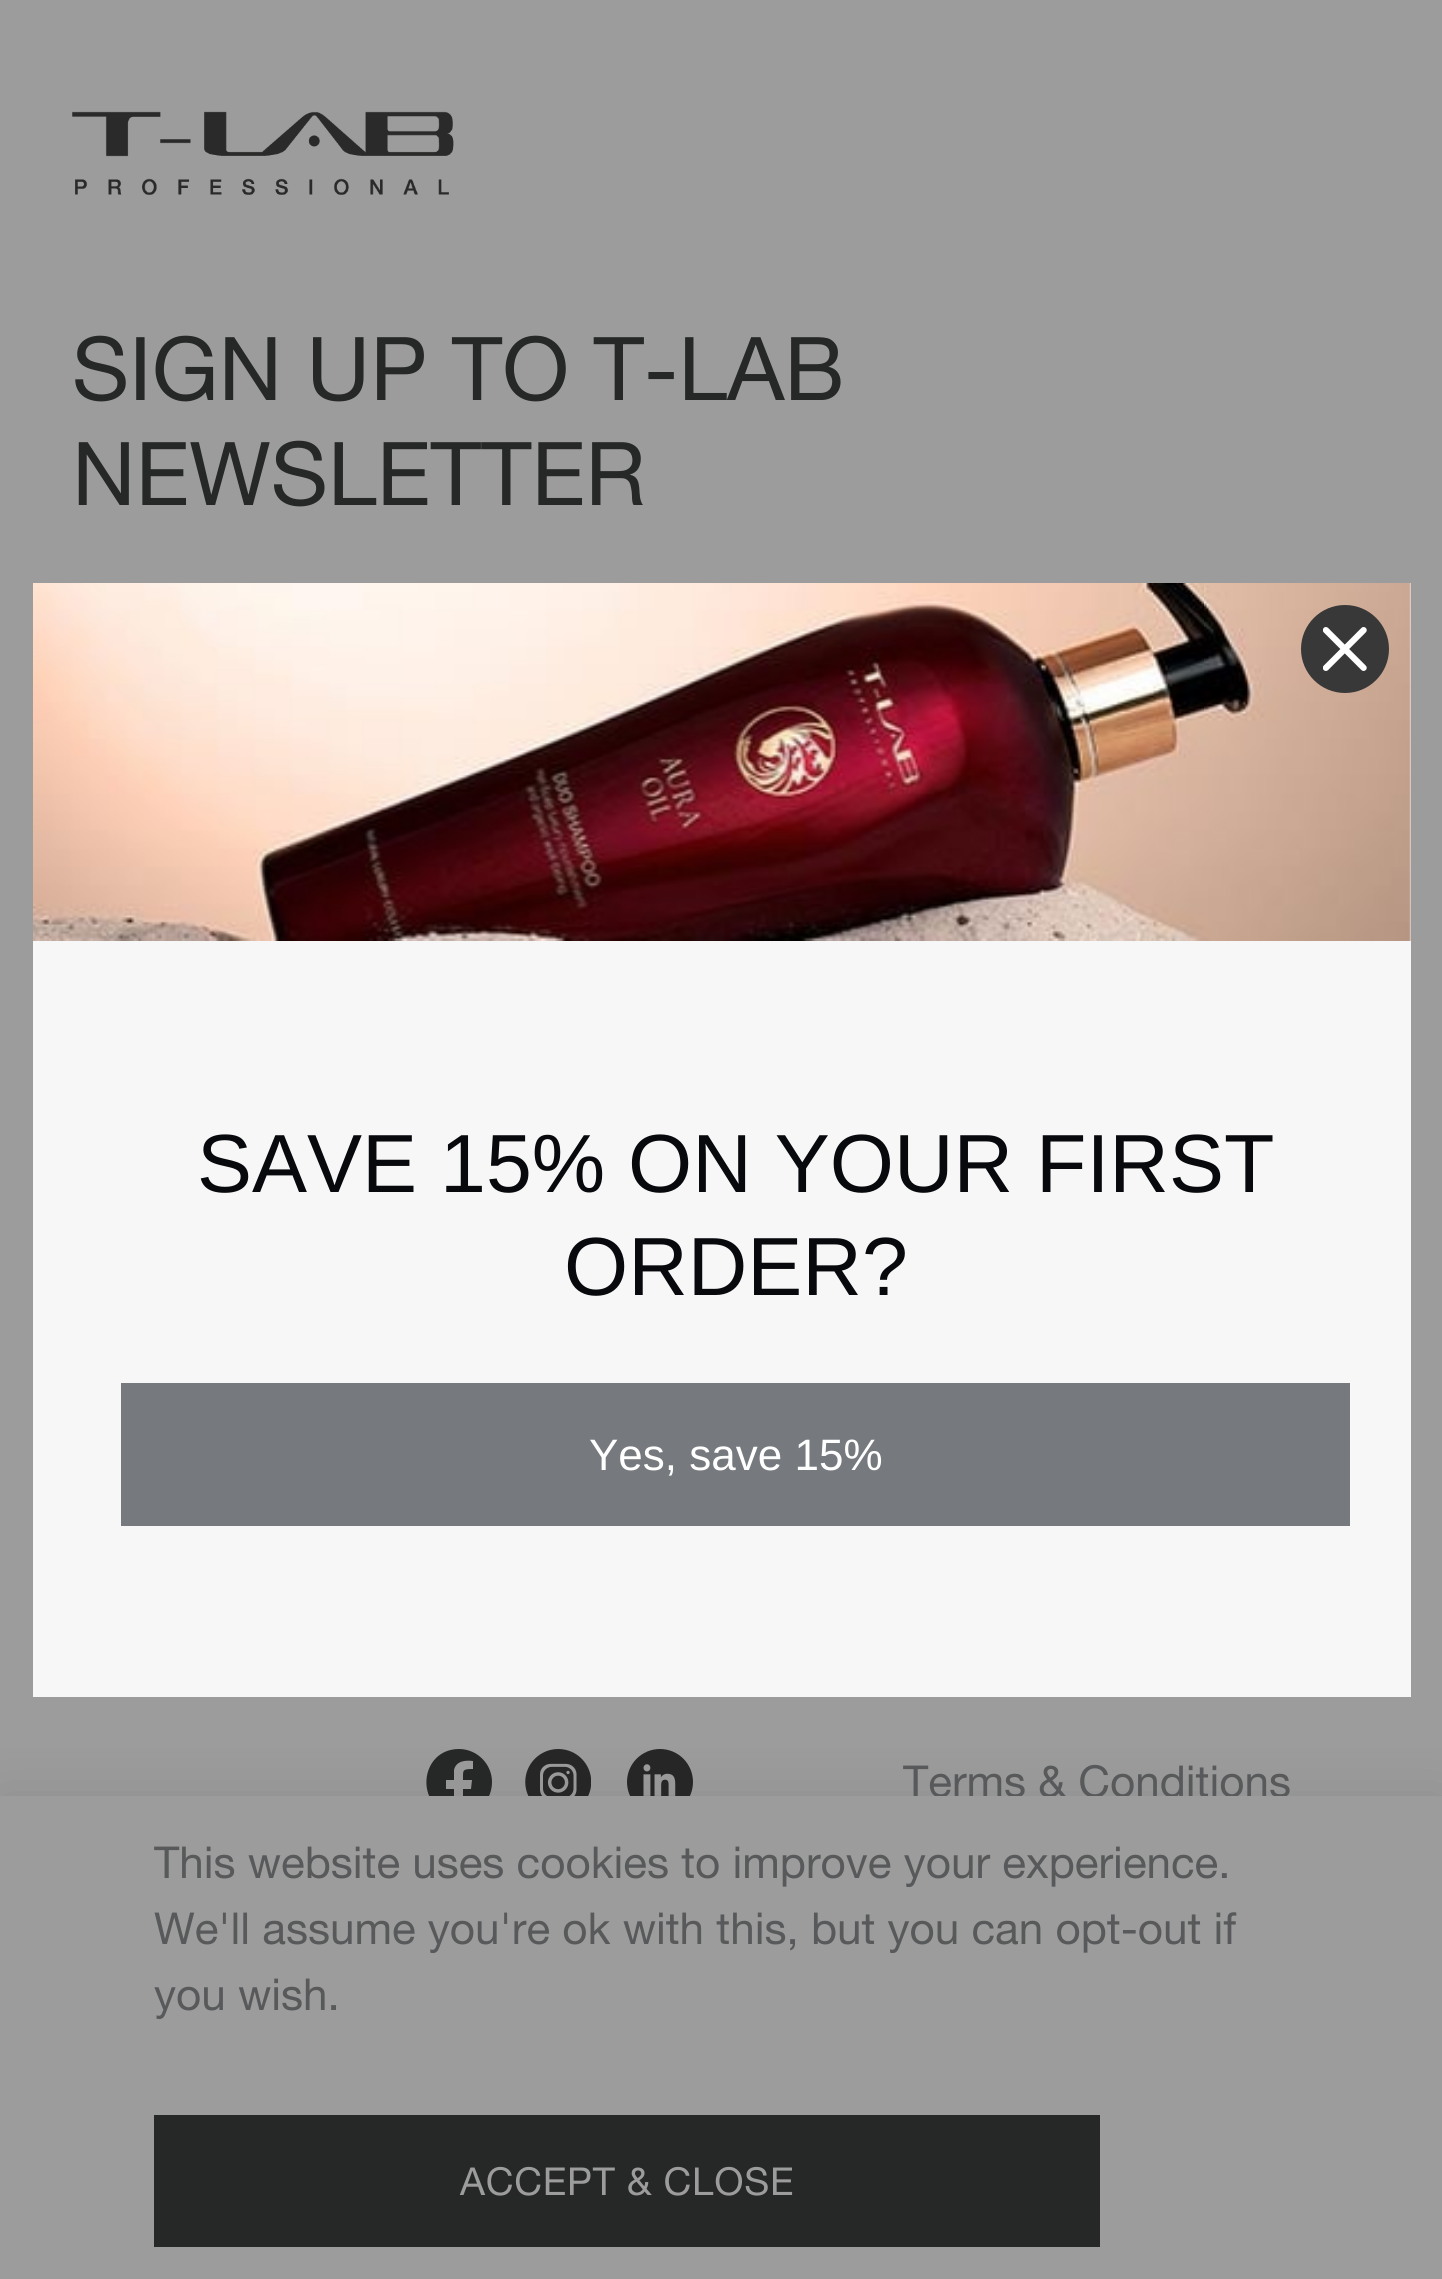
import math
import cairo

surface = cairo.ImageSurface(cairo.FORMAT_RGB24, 1442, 2279)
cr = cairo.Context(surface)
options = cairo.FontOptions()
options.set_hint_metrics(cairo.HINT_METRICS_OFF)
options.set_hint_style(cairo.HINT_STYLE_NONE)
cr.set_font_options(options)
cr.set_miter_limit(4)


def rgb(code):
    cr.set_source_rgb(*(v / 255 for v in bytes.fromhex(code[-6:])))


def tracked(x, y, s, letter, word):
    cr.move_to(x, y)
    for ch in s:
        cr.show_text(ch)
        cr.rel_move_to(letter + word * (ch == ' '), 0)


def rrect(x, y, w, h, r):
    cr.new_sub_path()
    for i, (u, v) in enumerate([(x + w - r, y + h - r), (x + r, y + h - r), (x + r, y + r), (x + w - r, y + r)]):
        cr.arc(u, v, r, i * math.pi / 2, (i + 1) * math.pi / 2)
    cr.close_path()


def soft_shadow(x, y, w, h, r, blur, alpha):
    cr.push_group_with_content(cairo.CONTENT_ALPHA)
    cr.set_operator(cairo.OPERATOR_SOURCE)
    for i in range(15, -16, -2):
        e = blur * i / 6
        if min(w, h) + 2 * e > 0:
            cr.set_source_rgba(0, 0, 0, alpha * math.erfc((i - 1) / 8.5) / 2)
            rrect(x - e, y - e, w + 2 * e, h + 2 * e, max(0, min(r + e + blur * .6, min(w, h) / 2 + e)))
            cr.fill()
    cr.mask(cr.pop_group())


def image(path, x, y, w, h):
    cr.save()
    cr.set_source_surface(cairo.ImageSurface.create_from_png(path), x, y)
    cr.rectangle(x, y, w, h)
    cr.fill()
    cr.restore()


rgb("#9c9c9c")
cr.paint()
image("img/1.png", 72, 111, 382, 84)
rgb("#262727")
cr.new_path()
cr.move_to(459, 1749)
cr.curve_to(419, 1749, 414, 1808, 454, 1815)
cr.line_to(454, 1789)
cr.line_to(446, 1789)
cr.line_to(446, 1780)
cr.line_to(454, 1780)
cr.line_to(454, 1770)
cr.curve_to(456, 1761, 465, 1760, 473, 1761)
cr.line_to(473, 1769)
cr.curve_to(462, 1769, 463, 1770, 463, 1780)
cr.line_to(472, 1780)
cr.line_to(471, 1789)
cr.line_to(463, 1789)
cr.line_to(463, 1815)
cr.curve_to(480, 1813, 492, 1799, 492, 1782)
cr.curve_to(492, 1764, 477, 1749, 459, 1749)
cr.close_path()
cr.fill()
image("img/2.png", 525, 1749, 66, 47)
image("img/3.png", 627, 1749, 66, 47)
rgb("#262727")
soft_shadow(0, 1807, 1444, 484, 0, 33, 0.15)
rgb("#f7f7f7")
cr.rectangle(1409, 583, 2, 358)
cr.fill()
image("img/5.png", 33, 583, 1378, 358)
rgb("#383838")
cr.arc(1345, 649, 44, 0, 2 * math.pi)
cr.fill()
image("img/4.png", 1323, 627, 44, 44)
rgb("#f7f7f7")
cr.rectangle(33, 941, 1378, 756)
cr.fill()
rgb("#76797d")
cr.rectangle(121, 1383, 1229, 143)
cr.fill()
cr.select_font_face("Helvetica Neue")
cr.set_font_size(88)
rgb("#262727")
cr.move_to(72, 400)
cr.show_text("SIGN UP TO T-LAB")
cr.move_to(72, 505)
cr.show_text("NEWSLETTER")
cr.set_font_size(44)
rgb("#57595b")
cr.move_to(903, 1797)
cr.show_text("Terms & Conditions")
rgb("#9c9c9c")
cr.rectangle(0, 1796, 1442, 483)
cr.fill()
rgb("#57595b")
for x, y, s in [
    (154, 1878, "This website uses cookies to improve your experience."),
    (154, 1944, "We'll assume you're ok with this, but you can opt-out if"),
    (154, 2010, "you wish."),
]:
    cr.move_to(x, y)
    cr.show_text(s)
rgb("#262727")
cr.rectangle(154, 2115, 946, 132)
cr.fill()
cr.set_font_size(38.5)
rgb("#9c9c9c")
tracked(460, 2195, "ACCEPT & CLOSE", 0.75, 0)
cr.select_font_face("Liberation Sans")
cr.set_font_size(82.5)
rgb("#08090d")
cr.move_to(197, 1192)
cr.show_text("SAVE 15% ON YOUR FIRST")
cr.move_to(564, 1295)
cr.show_text("ORDER?")
cr.set_font_size(44)
rgb("#ffffff")
cr.move_to(589, 1470)
cr.show_text("Yes, save 15%")
surface.write_to_png("page.png")
